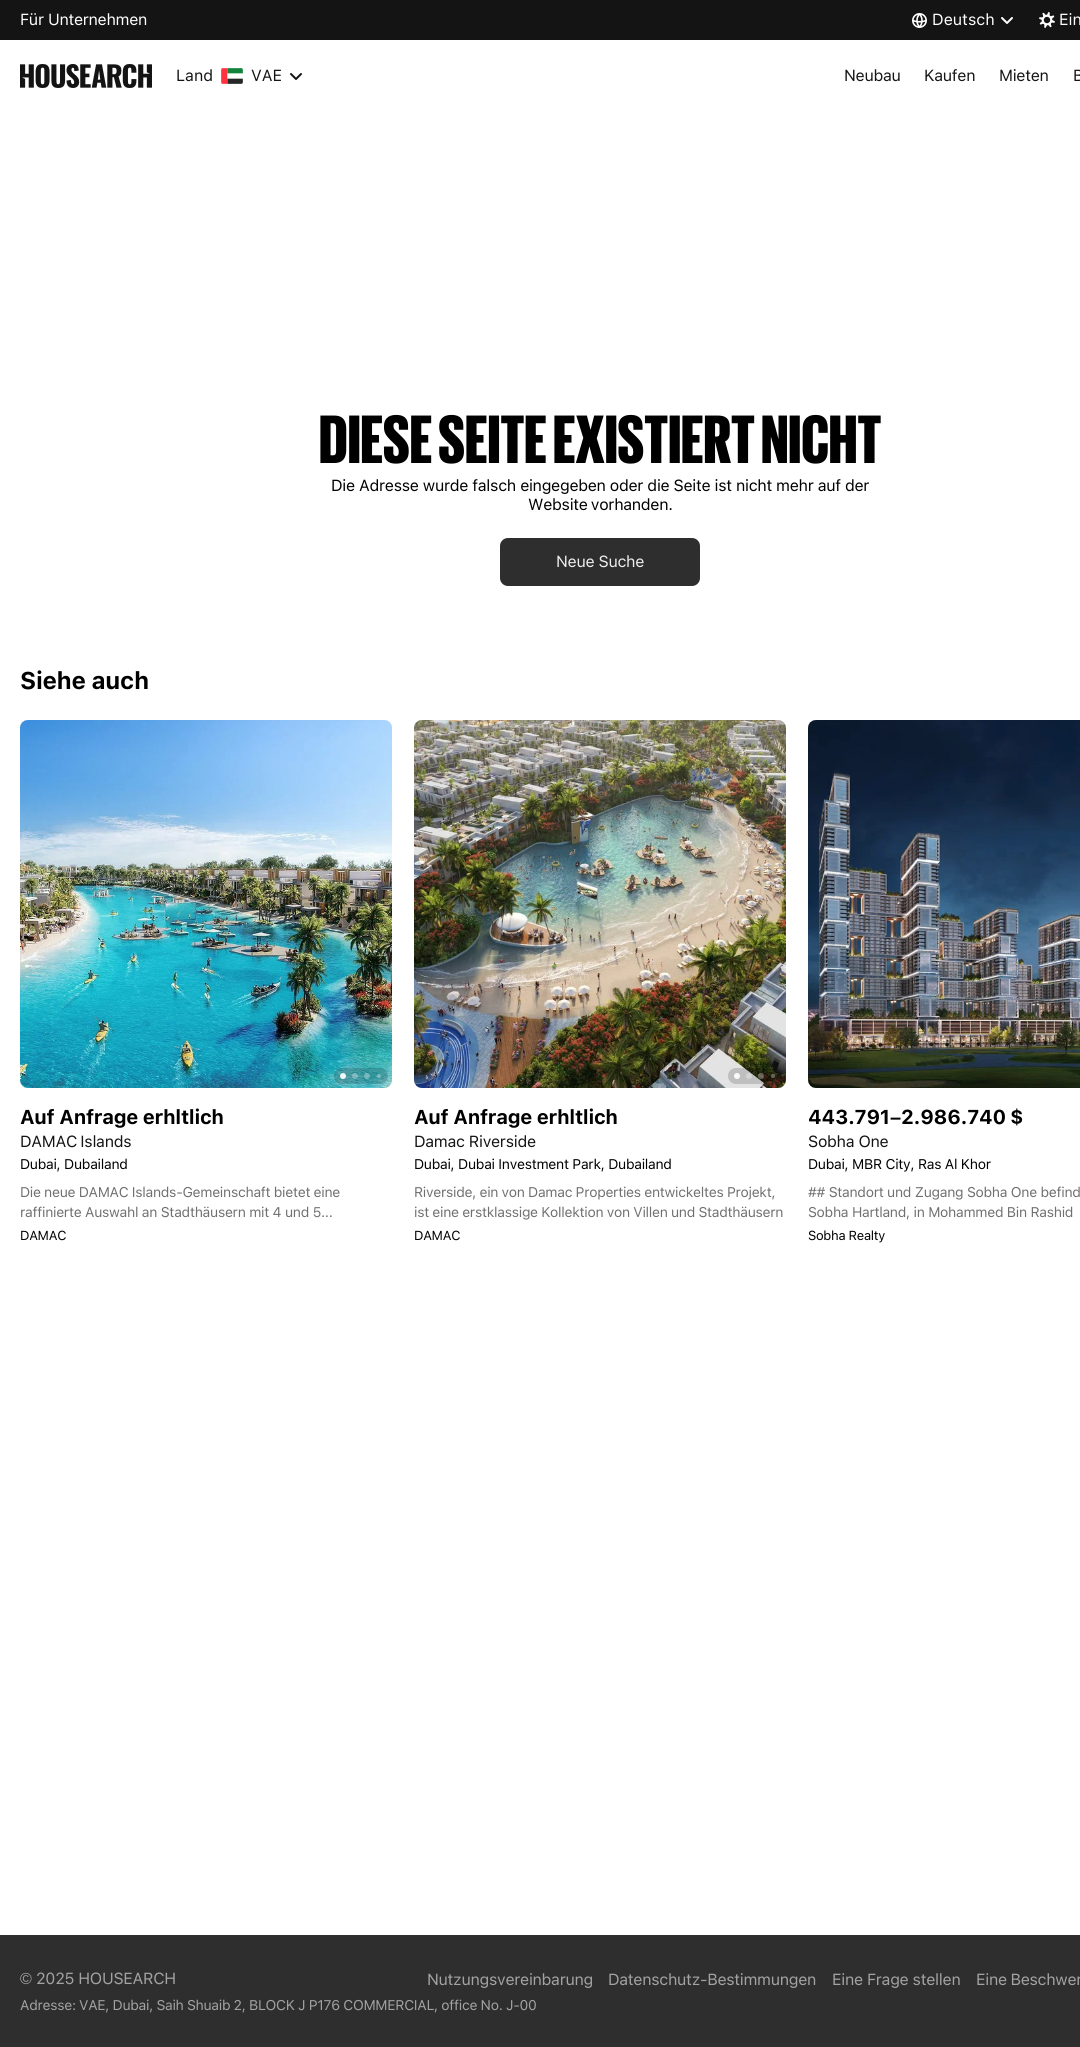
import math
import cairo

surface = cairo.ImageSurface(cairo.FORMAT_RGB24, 1080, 2047)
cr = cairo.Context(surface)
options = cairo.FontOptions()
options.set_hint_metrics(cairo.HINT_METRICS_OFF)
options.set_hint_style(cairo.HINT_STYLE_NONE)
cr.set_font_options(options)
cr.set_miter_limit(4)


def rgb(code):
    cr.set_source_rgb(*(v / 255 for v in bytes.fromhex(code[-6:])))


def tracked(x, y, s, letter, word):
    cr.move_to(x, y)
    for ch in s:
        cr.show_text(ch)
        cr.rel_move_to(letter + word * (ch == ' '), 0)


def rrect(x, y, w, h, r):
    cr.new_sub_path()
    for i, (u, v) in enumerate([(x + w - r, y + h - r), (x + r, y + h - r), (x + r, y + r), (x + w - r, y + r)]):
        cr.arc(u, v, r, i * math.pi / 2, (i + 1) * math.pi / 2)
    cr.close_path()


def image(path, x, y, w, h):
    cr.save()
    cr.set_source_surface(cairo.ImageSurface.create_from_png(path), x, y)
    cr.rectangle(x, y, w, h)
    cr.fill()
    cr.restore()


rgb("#ffffff")
cr.paint()
rgb("#141414")
cr.rectangle(0, 0, 1080, 40)
cr.fill()
image("img/1.png", 912, 13, 15, 15)
image("img/2.png", 1001, 17, 12, 7)
image("img/3.png", 1039, 12, 16, 16)
image("img/4.png", 20, 64, 132, 24)
image("img/5.png", 221, 68, 22, 16)
image("img/6.png", 290, 73, 12, 7)
rgb("#2e2e2e")
rrect(500, 538, 200, 48, 8)
cr.fill()
rgb("#e7eaef")
rrect(20, 720, 372, 368, 8)
cr.fill()
image("img/7.png", 20, 720, 372, 368)
cr.set_source_rgba(0, 0, 0, 0.16)
rrect(334, 1068, 54, 16, 8)
cr.fill()
cr.set_source_rgba(1, 1, 1, 0.92)
cr.arc(343, 1076, 3, 0, 2 * math.pi)
cr.fill()
cr.set_source_rgba(1, 1, 1, 0.32)
cr.arc(355, 1076, 3, 0, 2 * math.pi)
cr.fill()
cr.arc(367, 1076, 3, 0, 2 * math.pi)
cr.fill()
cr.arc(379, 1076, 2, 0, 2 * math.pi)
cr.fill()
rgb("#e7eaef")
rrect(414, 720, 372, 368, 8)
cr.fill()
image("img/8.png", 414, 720, 372, 368)
cr.set_source_rgba(0, 0, 0, 0.16)
rrect(728, 1068, 54, 16, 8)
cr.fill()
rgb("#fafafa")
cr.arc(737, 1076, 3, 0, 2 * math.pi)
cr.fill()
cr.set_source_rgba(1, 1, 1, 0.32)
cr.arc(749, 1076, 3, 0, 2 * math.pi)
cr.fill()
cr.arc(761, 1076, 3, 0, 2 * math.pi)
cr.fill()
cr.arc(773, 1076, 2, 0, 2 * math.pi)
cr.fill()
rgb("#e7eaef")
rrect(808, 720, 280, 368, 8)
cr.fill()
image("img/9.png", 808, 720, 272, 368)
rgb("#2e2e2e")
cr.rectangle(0, 1935, 1080, 112)
cr.fill()
cr.select_font_face("SF Pro Text")
cr.set_font_size(16)
rgb("#ffffff")
tracked(20, 25, "Für Unternehmen", -0.3, 0)
cr.move_to(932, 25)
cr.show_text("Deutsch")
cr.move_to(1059, 25)
cr.show_text("Ein")
rgb("#141414")
cr.move_to(176, 81)
cr.show_text("Land")
cr.move_to(251, 81)
cr.show_text("VAE")
for x, y, s in [
    (844, 81, "Neubau"),
    (924, 81, "Kaufen"),
    (999, 81, "Mieten"),
    (1073, 81, "B"),
]:
    tracked(x, y, s, -0.3, 0)
cr.select_font_face("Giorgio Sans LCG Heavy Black")
cr.set_font_size(70)
rgb("#000000")
tracked(319, 463, "DIESE SEITE EXISTIERT NICHT", 0, -0.5)
cr.select_font_face("SF Pro Text")
cr.set_font_size(16)
tracked(331, 491, "Die Adresse wurde falsch eingegeben oder die Seite ist nicht mehr auf der", -0.3, 0)
tracked(528, 510, "Website vorhanden.", -0.3, -1)
rgb("#eeeeee")
tracked(556, 567, "Neue Suche", -0.3, 0)
cr.select_font_face("SF Pro Text", cairo.FONT_SLANT_NORMAL, cairo.FONT_WEIGHT_BOLD)
cr.set_font_size(24)
rgb("#000000")
tracked(20, 689, "Siehe auch", -0.3, 0)
cr.set_font_size(20)
tracked(20, 1124, "Auf Anfrage erhltlich", -0.3, 0)
cr.select_font_face("SF Pro Text")
cr.set_font_size(16)
rgb("#141414")
tracked(20, 1147, "DAMAC Islands", -0.3, -1)
cr.set_font_size(14)
rgb("#000000")
tracked(20, 1169, "Dubai, Dubailand", -0.3, 0)
rgb("#707070")
tracked(20, 1197, "Die neue DAMAC Islands-Gemeinschaft bietet eine", -0.3, -0.25)
tracked(20, 1217, "raffinierte Auswahl an Stadthäusern mit 4 und 5...", -0.3, 0)
cr.set_font_size(13)
rgb("#000000")
tracked(20, 1240, "DAMAC", -0.3, 0)
cr.select_font_face("SF Pro Text", cairo.FONT_SLANT_NORMAL, cairo.FONT_WEIGHT_BOLD)
cr.set_font_size(20)
tracked(414, 1124, "Auf Anfrage erhltlich", -0.3, 0)
cr.select_font_face("SF Pro Text")
cr.set_font_size(16)
rgb("#141414")
tracked(414, 1147, "Damac Riverside", -0.3, 0)
cr.set_font_size(14)
rgb("#000000")
tracked(414, 1169, "Dubai, Dubai Investment Park, Dubailand", -0.3, 0)
rgb("#707070")
tracked(414, 1197, "Riverside, ein von Damac Properties entwickeltes Projekt,", -0.3, -0.25)
tracked(414, 1217, "ist eine erstklassige Kollektion von Villen und Stadthäusern", -0.3, -0.25)
cr.set_font_size(13)
rgb("#000000")
tracked(414, 1240, "DAMAC", -0.3, 0)
cr.select_font_face("SF Pro Text", cairo.FONT_SLANT_NORMAL, cairo.FONT_WEIGHT_BOLD)
cr.set_font_size(20)
tracked(808, 1124, "443.791", -0.3, 0)
cr.select_font_face("Liberation Sans", cairo.FONT_SLANT_NORMAL, cairo.FONT_WEIGHT_BOLD)
tracked(890, 1124, "–", -0.3, 0)
cr.select_font_face("SF Pro Text", cairo.FONT_SLANT_NORMAL, cairo.FONT_WEIGHT_BOLD)
tracked(901, 1124, "2.986.740", -0.3, 0)
tracked(1010, 1124, "$", -0.3, 0)
cr.select_font_face("SF Pro Text")
cr.set_font_size(16)
rgb("#141414")
tracked(808, 1147, "Sobha One", -0.3, 0)
cr.set_font_size(14)
rgb("#000000")
tracked(808, 1169, "Dubai, MBR City, Ras Al Khor", -0.3, 0)
rgb("#707070")
tracked(808, 1197, "## Standort und Zugang Sobha One befind", -0.3, 0)
tracked(808, 1217, "Sobha Hartland, in Mohammed Bin Rashid", -0.3, 0)
cr.set_font_size(13)
rgb("#000000")
tracked(808, 1240, "Sobha Realty", -0.3, 0)
cr.select_font_face("Liberation Sans")
cr.set_font_size(16)
rgb("#a3a3a3")
tracked(20, 1984, "©", -0.3, 0)
cr.select_font_face("SF Pro Text")
for x, y, s in [
    (36, 1984, "2025 HOUSEARCH"),
    (427, 1985, "Nutzungsvereinbarung"),
    (608, 1985, "Datenschutz-Bestimmungen"),
    (832, 1985, "Eine Frage stellen"),
]:
    tracked(x, y, s, -0.3, 0)
tracked(976, 1985, "Eine Beschwer", -0.3, -0.5)
cr.set_font_size(14)
tracked(20, 2010, "Adresse:", -0.3, 0)
tracked(79, 2010, "VAE, Dubai, Saih Shuaib 2, BLOCK J P176 COMMERCIAL, office No. J-00", -0.3, -0.25)
surface.write_to_png("page.png")
